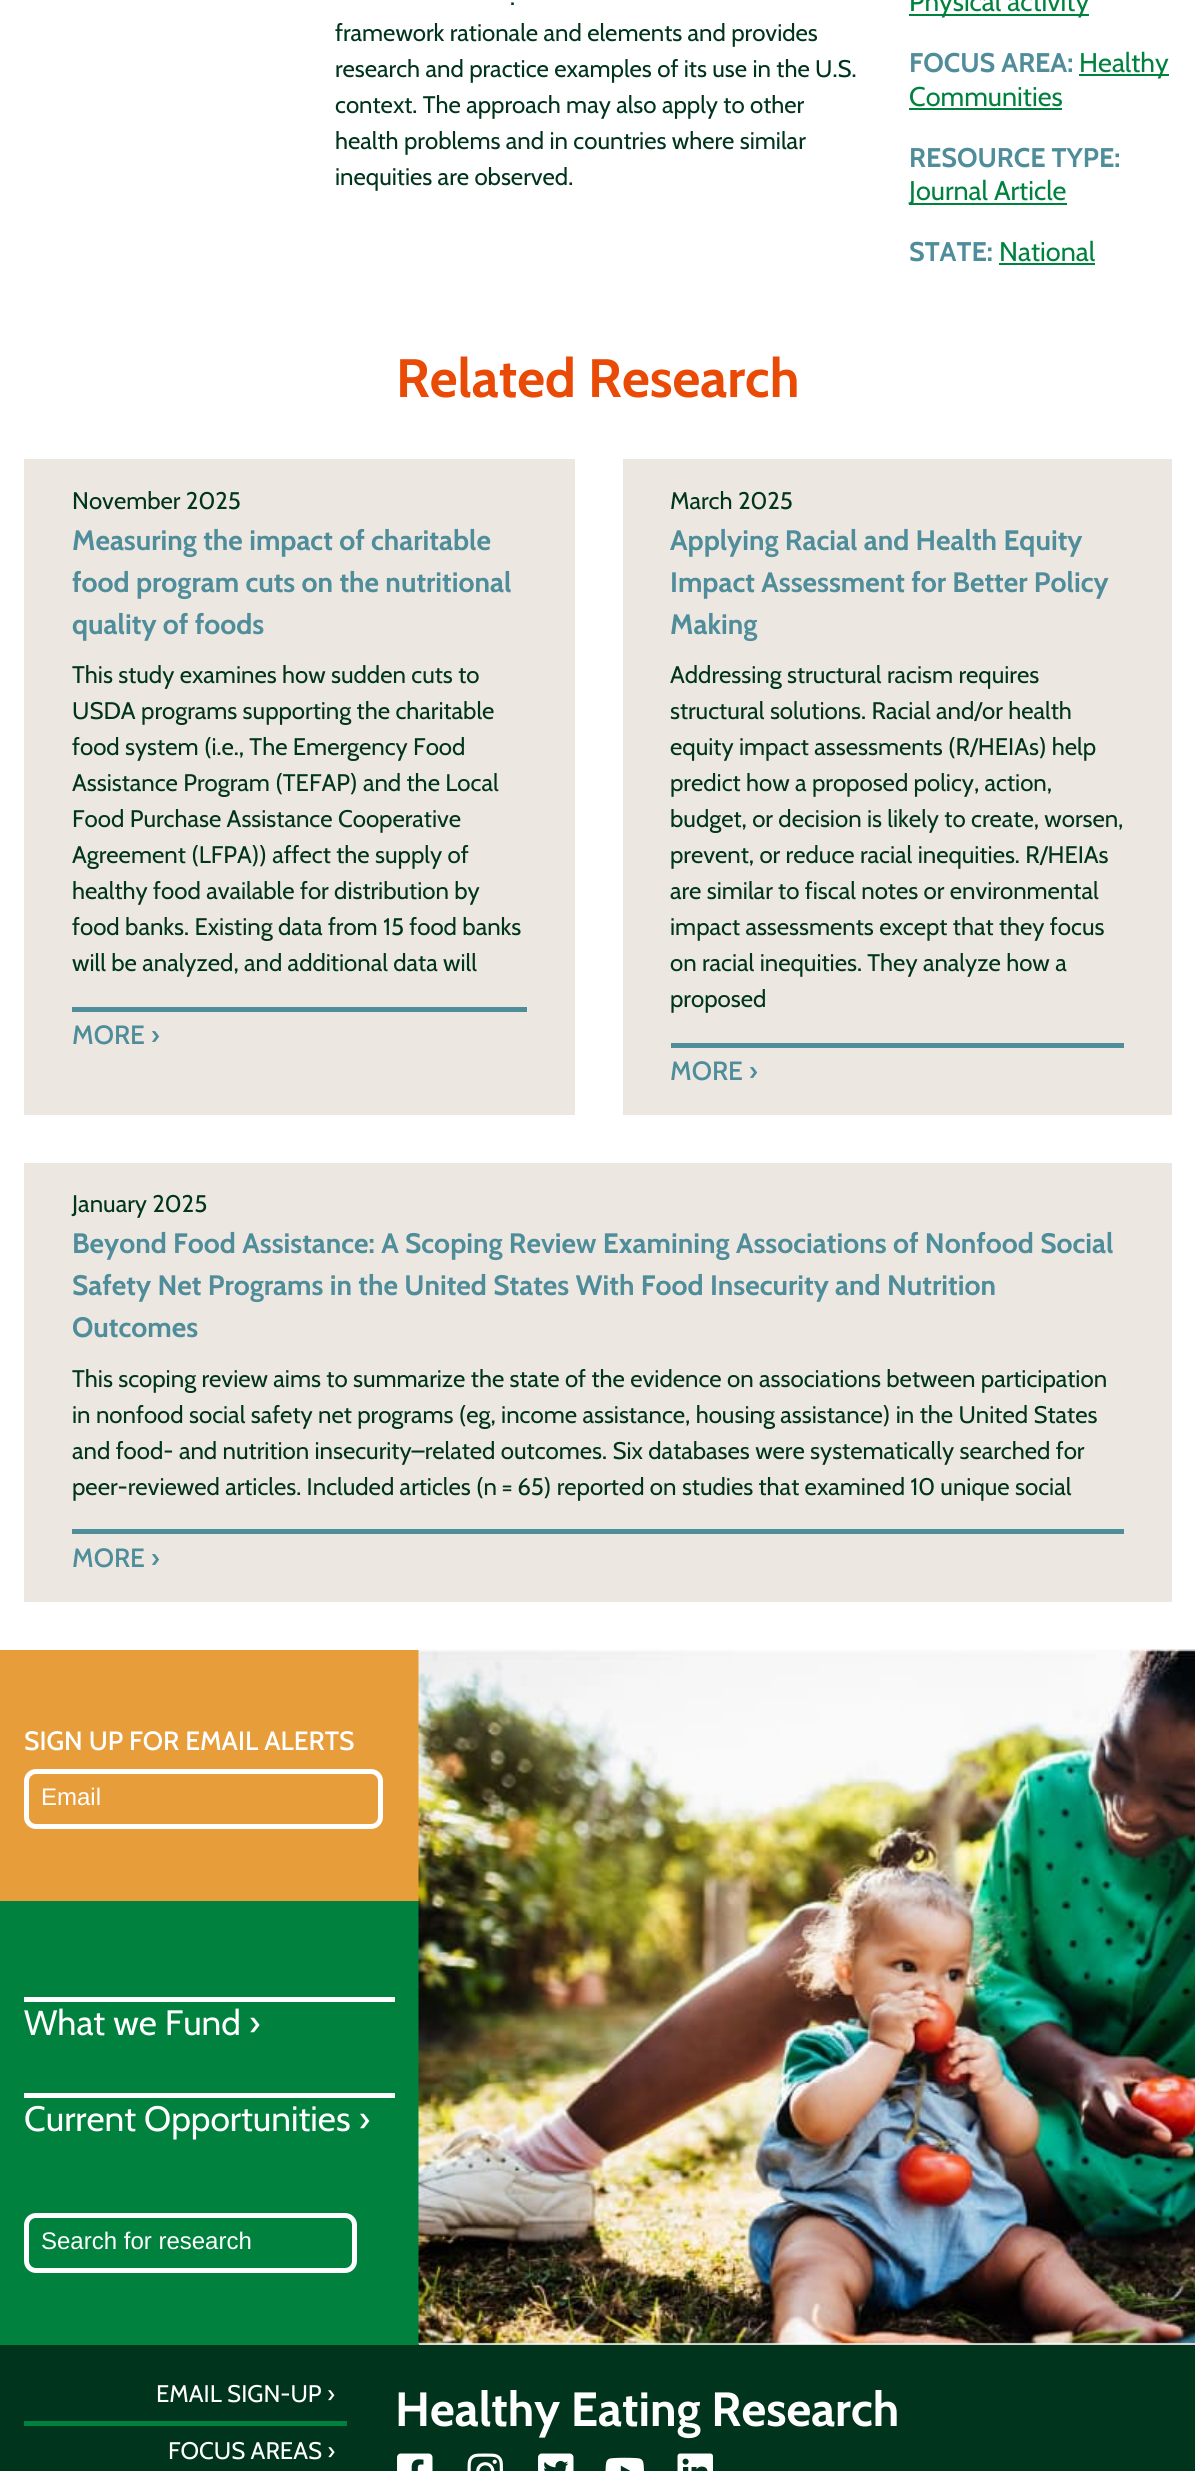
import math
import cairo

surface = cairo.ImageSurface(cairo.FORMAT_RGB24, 1195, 2471)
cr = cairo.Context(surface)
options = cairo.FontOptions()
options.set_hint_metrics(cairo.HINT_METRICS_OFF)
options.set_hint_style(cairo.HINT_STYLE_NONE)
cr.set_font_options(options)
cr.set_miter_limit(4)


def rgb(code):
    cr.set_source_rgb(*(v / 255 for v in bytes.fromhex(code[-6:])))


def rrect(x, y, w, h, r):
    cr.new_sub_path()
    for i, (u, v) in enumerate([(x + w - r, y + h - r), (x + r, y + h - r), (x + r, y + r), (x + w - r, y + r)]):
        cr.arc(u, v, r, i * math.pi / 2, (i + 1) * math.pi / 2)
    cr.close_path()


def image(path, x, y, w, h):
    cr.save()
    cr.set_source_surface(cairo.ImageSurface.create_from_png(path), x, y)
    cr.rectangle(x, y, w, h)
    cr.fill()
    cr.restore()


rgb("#ffffff")
cr.paint()
for x, y, w, h, color in [
    (909, 14, 180, 2, "#00813e"),
    (1079, 74, 90, 2, "#00813e"),
    (909, 108, 153, 2, "#00813e"),
    (909, 203, 158, 2, "#00813e"),
    (999, 263, 96, 2, "#00813e"),
    (24, 459, 551, 656, "#ece7e1"),
    (72, 1007, 455, 5, "#508d9a"),
    (623, 459, 549, 656, "#ece7e1"),
    (671, 1043, 453, 5, "#508d9a"),
    (24, 1163, 1148, 439, "#ece7e1"),
    (72, 1529, 1052, 5, "#508d9a"),
    (419, 2344, 776, 1, "#e0d7cd"),
    (0, 1650, 419, 251, "#e89d3b"),
]:
    rgb(color)
    cr.rectangle(x, y, w, h)
    cr.fill()
rrect(26.5, 1771.5, 354, 55, 9.5)
rgb("#ffffff")
cr.set_line_width(5)
cr.stroke()
for x, y, w, h, color in [
    (0, 1901, 419, 444, "#00813e"),
    (24, 1997, 371, 5, "#ffffff"),
    (24, 2093, 371, 5, "#ffffff"),
]:
    rgb(color)
    cr.rectangle(x, y, w, h)
    cr.fill()
rrect(26.5, 2215.5, 328, 55, 9.5)
cr.stroke()
image("img/1.png", 418, 1649, 777, 695)
rgb("#00341c")
cr.rectangle(0, 2345, 1195, 126)
cr.fill()
rgb("#00803e")
cr.rectangle(24, 2421, 323, 5)
cr.fill()
image("img/2.png", 397, 2453, 36, 18)
image("img/3.png", 467, 2453, 36, 18)
image("img/4.png", 538, 2453, 36, 18)
image("img/5.png", 605, 2457, 39, 14)
image("img/6.png", 677, 2453, 36, 18)
cr.select_font_face("Cabin")
cr.set_font_size(24)
rgb("#00341c")
for x, y, s in [
    (510, 5, "."),
    (335, 41, "framework rationale and elements and provides"),
    (335, 77, "research and practice examples of its use in the U.S."),
    (335, 113, "context. The approach may also apply to other"),
    (335, 149, "health problems and in countries where similar"),
    (335, 185, "inequities are observed."),
]:
    cr.move_to(x, y)
    cr.show_text(s)
cr.set_font_size(27)
rgb("#00813e")
cr.move_to(909, 11)
cr.show_text("Physical activity")
cr.select_font_face("Cabin", cairo.FONT_SLANT_NORMAL, cairo.FONT_WEIGHT_BOLD)
rgb("#508d9a")
cr.move_to(909, 72)
cr.show_text("FOCUS AREA:")
cr.select_font_face("Cabin")
rgb("#00813e")
cr.move_to(1079, 72)
cr.show_text("Healthy")
cr.move_to(909, 106)
cr.show_text("Communities")
cr.select_font_face("Cabin", cairo.FONT_SLANT_NORMAL, cairo.FONT_WEIGHT_BOLD)
rgb("#508d9a")
cr.move_to(909, 167)
cr.show_text("RESOURCE TYPE:")
cr.select_font_face("Cabin")
rgb("#00813e")
cr.move_to(909, 200)
cr.show_text("Journal Article")
cr.select_font_face("Cabin", cairo.FONT_SLANT_NORMAL, cairo.FONT_WEIGHT_BOLD)
rgb("#508d9a")
cr.move_to(909, 261)
cr.show_text("STATE:")
cr.select_font_face("Cabin")
rgb("#00813e")
cr.move_to(999, 261)
cr.show_text("National")
cr.select_font_face("Cabin", cairo.FONT_SLANT_NORMAL, cairo.FONT_WEIGHT_BOLD)
cr.set_font_size(54)
rgb("#e94a06")
cr.move_to(396, 397)
cr.show_text("Related Research")
cr.select_font_face("Cabin")
cr.set_font_size(24)
rgb("#00341c")
cr.move_to(72, 509)
cr.show_text("November 2025")
cr.select_font_face("Cabin", cairo.FONT_SLANT_NORMAL, cairo.FONT_WEIGHT_BOLD)
cr.set_font_size(28.1)
rgb("#508d9a")
for x, y, s in [
    (72, 550, "Measuring the impact of charitable"),
    (72, 592, "food program cuts on the nutritional"),
    (72, 634, "quality of foods"),
]:
    cr.move_to(x, y)
    cr.show_text(s)
cr.select_font_face("Cabin")
cr.set_font_size(24)
rgb("#00341c")
for x, y, s in [
    (72, 683, "This study examines how sudden cuts to"),
    (72, 719, "USDA programs supporting the charitable"),
    (72, 755, "food system (i.e., The Emergency Food"),
    (72, 791, "Assistance Program (TEFAP) and the Local"),
    (72, 827, "Food Purchase Assistance Cooperative"),
    (72, 863, "Agreement (LFPA)) affect the supply of"),
    (72, 899, "healthy food available for distribution by"),
    (72, 935, "food banks. Existing data from 15 food banks"),
    (72, 971, "will be analyzed, and additional data will"),
]:
    cr.move_to(x, y)
    cr.show_text(s)
cr.select_font_face("Cabin Medium")
cr.set_font_size(26.4)
rgb("#508d9a")
cr.move_to(72, 1044)
cr.show_text("MORE ›")
cr.select_font_face("Cabin")
cr.set_font_size(24)
rgb("#00341c")
cr.move_to(670, 509)
cr.show_text("March 2025")
cr.select_font_face("Cabin", cairo.FONT_SLANT_NORMAL, cairo.FONT_WEIGHT_BOLD)
cr.set_font_size(28.1)
rgb("#508d9a")
for x, y, s in [
    (670, 550, "Applying Racial and Health Equity"),
    (670, 592, "Impact Assessment for Better Policy"),
    (670, 634, "Making"),
]:
    cr.move_to(x, y)
    cr.show_text(s)
cr.select_font_face("Cabin")
cr.set_font_size(24)
rgb("#00341c")
for x, y, s in [
    (670, 683, "Addressing structural racism requires"),
    (670, 719, "structural solutions. Racial and/or health"),
    (670, 755, "equity impact assessments (R/HEIAs) help"),
    (670, 791, "predict how a proposed policy, action,"),
    (670, 827, "budget, or decision is likely to create, worsen,"),
    (670, 863, "prevent, or reduce racial inequities. R/HEIAs"),
    (670, 899, "are similar to fiscal notes or environmental"),
    (670, 935, "impact assessments except that they focus"),
    (670, 971, "on racial inequities. They analyze how a"),
    (670, 1007, "proposed"),
]:
    cr.move_to(x, y)
    cr.show_text(s)
cr.select_font_face("Cabin Medium")
cr.set_font_size(26.4)
rgb("#508d9a")
cr.move_to(670, 1080)
cr.show_text("MORE ›")
cr.select_font_face("Cabin")
cr.set_font_size(24)
rgb("#00341c")
cr.move_to(72, 1212)
cr.show_text("January 2025")
cr.select_font_face("Cabin", cairo.FONT_SLANT_NORMAL, cairo.FONT_WEIGHT_BOLD)
cr.set_font_size(28.1)
rgb("#508d9a")
for x, y, s in [
    (72, 1253, "Beyond Food Assistance: A Scoping Review Examining Associations of Nonfood Social"),
    (72, 1295, "Safety Net Programs in the United States With Food Insecurity and Nutrition"),
    (72, 1337, "Outcomes"),
]:
    cr.move_to(x, y)
    cr.show_text(s)
cr.select_font_face("Cabin")
cr.set_font_size(24)
rgb("#00341c")
for x, y, s in [
    (72, 1387, "This scoping review aims to summarize the state of the evidence on associations between participation"),
    (72, 1423, "in nonfood social safety net programs (eg, income assistance, housing assistance) in the United States"),
    (72, 1459, "and food- and nutrition insecurity–related outcomes. Six databases were systematically searched for"),
    (72, 1495, "peer-reviewed articles. Included articles (n = 65) reported on studies that examined 10 unique social"),
]:
    cr.move_to(x, y)
    cr.show_text(s)
cr.select_font_face("Cabin Medium")
cr.set_font_size(26.4)
rgb("#508d9a")
cr.move_to(72, 1567)
cr.show_text("MORE ›")
rgb("#ffffff")
cr.move_to(24, 1750)
cr.show_text("SIGN UP FOR EMAIL ALERTS")
cr.select_font_face("Liberation Sans")
cr.set_font_size(24)
cr.move_to(41, 1805)
cr.show_text("Email")
cr.select_font_face("Cabin")
cr.set_font_size(35.25)
cr.move_to(24, 2035)
cr.show_text("What we Fund ›")
cr.move_to(24, 2131)
cr.show_text("Current Opportunities ›")
cr.select_font_face("Liberation Sans")
cr.set_font_size(24)
cr.move_to(41, 2249)
cr.show_text("Search for research")
cr.select_font_face("Cabin")
cr.move_to(156, 2402)
cr.show_text("EMAIL SIGN-UP ›")
cr.move_to(168, 2459)
cr.show_text("FOCUS AREAS ›")
cr.select_font_face("Cabin", cairo.FONT_SLANT_NORMAL, cairo.FONT_WEIGHT_BOLD)
cr.set_font_size(48)
cr.move_to(395, 2426)
cr.show_text("Healthy Eating Research")
surface.write_to_png("page.png")
